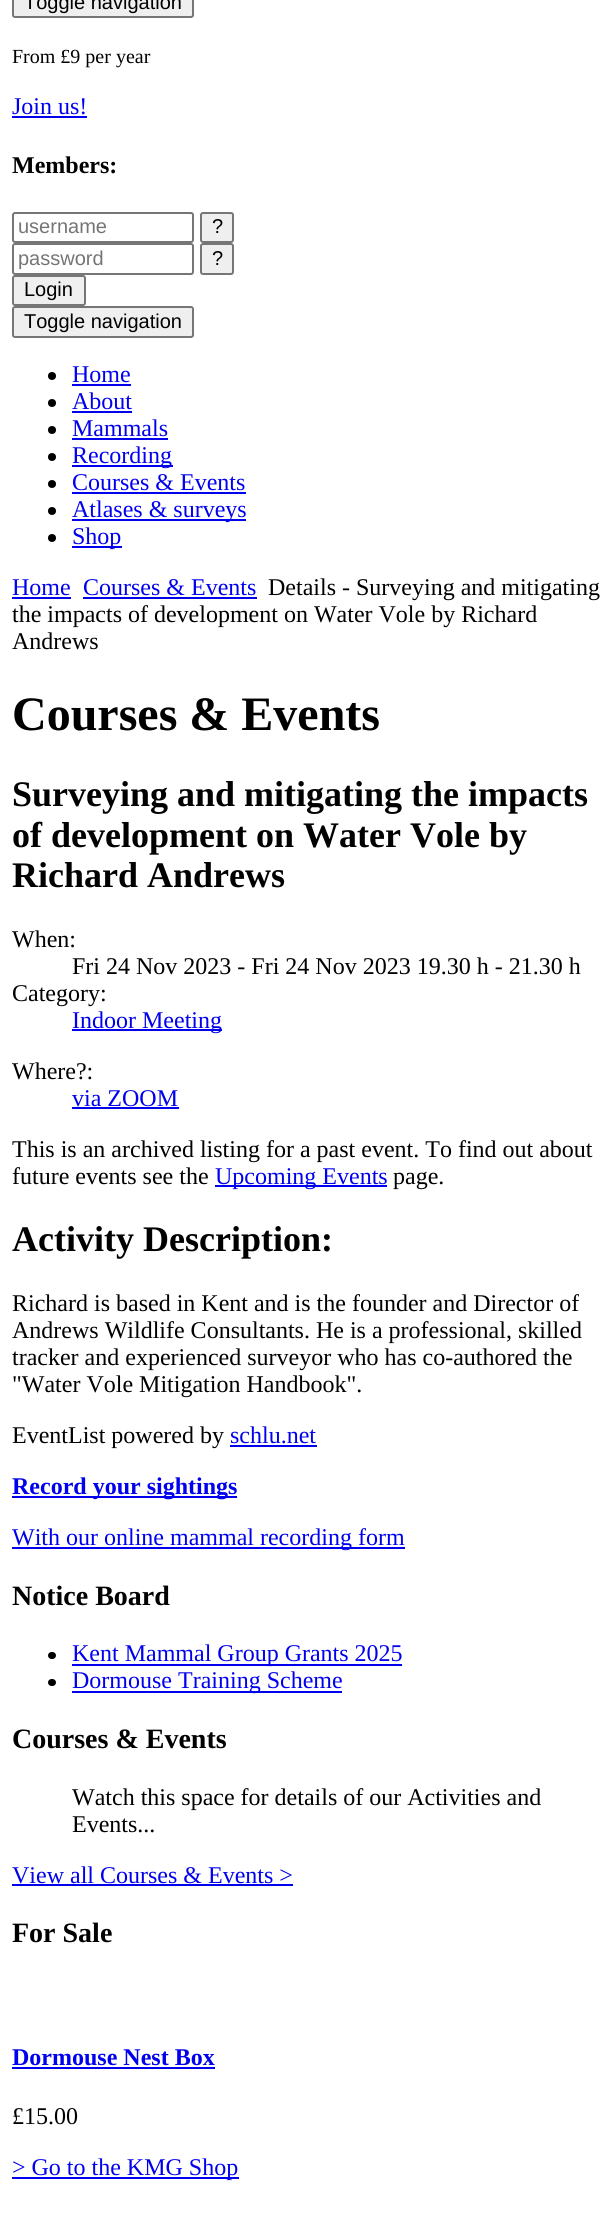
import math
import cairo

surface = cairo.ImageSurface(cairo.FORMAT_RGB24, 613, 2224)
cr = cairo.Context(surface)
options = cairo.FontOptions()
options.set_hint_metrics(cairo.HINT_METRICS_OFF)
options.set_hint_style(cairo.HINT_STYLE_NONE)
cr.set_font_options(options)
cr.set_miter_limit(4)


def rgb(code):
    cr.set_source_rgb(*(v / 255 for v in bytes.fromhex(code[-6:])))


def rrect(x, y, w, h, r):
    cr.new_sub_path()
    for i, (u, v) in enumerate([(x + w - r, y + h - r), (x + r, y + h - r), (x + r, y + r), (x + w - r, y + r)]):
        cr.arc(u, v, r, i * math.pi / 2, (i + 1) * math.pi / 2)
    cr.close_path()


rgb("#ffffff")
cr.paint()
rgb("#efefef")
rrect(13, -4, 180, 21, 2)
cr.fill_preserve()
rgb("#767676")
cr.stroke()
rgb("#0000ee")
cr.rectangle(12, 116, 75, 2)
cr.fill()
rrect(13, 213, 180, 29, 2)
rgb("#767676")
cr.stroke()
rgb("#efefef")
rrect(201, 213, 32, 29, 2)
cr.fill_preserve()
rgb("#767676")
cr.stroke()
rrect(13, 244, 180, 30, 2)
cr.stroke()
rgb("#efefef")
rrect(201, 244, 32, 30, 2)
cr.fill_preserve()
rgb("#767676")
cr.stroke()
rgb("#efefef")
rrect(13, 276, 72, 29, 2)
cr.fill_preserve()
rgb("#767676")
cr.stroke()
rgb("#efefef")
rrect(13, 307, 180, 30, 2)
cr.fill_preserve()
rgb("#767676")
cr.stroke()
rgb("#000000")
cr.arc(52, 376, 4, 0, 2 * math.pi)
cr.fill()
rgb("#0000ee")
cr.rectangle(72, 384, 59, 2)
cr.fill()
rgb("#000000")
cr.arc(52, 403, 4, 0, 2 * math.pi)
cr.fill()
rgb("#0000ee")
cr.rectangle(72, 411, 60, 2)
cr.fill()
rgb("#000000")
cr.arc(52, 430, 4, 0, 2 * math.pi)
cr.fill()
rgb("#0000ee")
cr.rectangle(72, 438, 96, 2)
cr.fill()
rgb("#000000")
cr.arc(52, 457, 4, 0, 2 * math.pi)
cr.fill()
rgb("#0000ee")
cr.rectangle(72, 465, 101, 2)
cr.fill()
rgb("#000000")
cr.arc(52, 484, 4, 0, 2 * math.pi)
cr.fill()
rgb("#0000ee")
cr.rectangle(72, 492, 174, 2)
cr.fill()
rgb("#000000")
cr.arc(52, 511, 4, 0, 2 * math.pi)
cr.fill()
rgb("#0000ee")
cr.rectangle(72, 519, 174, 2)
cr.fill()
rgb("#000000")
cr.arc(52, 538, 4, 0, 2 * math.pi)
cr.fill()
for x, y, w, h, color in [
    (72, 546, 50, 2, "#0000ee"),
    (12, 597, 59, 2, "#0000ee"),
    (83, 597, 174, 2, "#0000ee"),
    (72, 1029, 150, 2, "#0000ee"),
    (72, 1107, 107, 2, "#0000ee"),
    (215, 1185, 172, 2, "#0000ee"),
    (230, 1445, 87, 2, "#0000ee"),
    (12, 1496, 225, 2, "#0000ee"),
    (12, 1547, 393, 2, "#0000ee"),
]:
    rgb(color)
    cr.rectangle(x, y, w, h)
    cr.fill()
rgb("#000000")
rrect(48, 1652, 8, 7, 3.5)
cr.fill()
rgb("#0000ee")
cr.rectangle(72, 1664, 330, 2)
cr.fill()
rgb("#000000")
rrect(48, 1679, 8, 7, 3.5)
cr.fill()
for x, y, w, h, color in [
    (72, 1691, 270, 2, "#0000ee"),
    (12, 1884, 281, 2, "#0000ee"),
    (12, 2067, 203, 2, "#0000ee"),
    (12, 2177, 227, 2, "#0000ee"),
]:
    rgb(color)
    cr.rectangle(x, y, w, h)
    cr.fill()
cr.select_font_face("Liberation Sans")
cr.set_font_size(20)
rgb("#000000")
cr.move_to(24, 9)
cr.show_text("Toggle navigation")
cr.select_font_face("Liberation Serif")
cr.move_to(12, 63)
cr.show_text("From £9 per year")
cr.set_font_size(24)
rgb("#0000ee")
cr.move_to(12, 114)
cr.show_text("Join us!")
cr.select_font_face("Liberation Serif", cairo.FONT_SLANT_NORMAL, cairo.FONT_WEIGHT_BOLD)
rgb("#000000")
cr.move_to(12, 173)
cr.show_text("Members:")
cr.select_font_face("Liberation Sans")
cr.set_font_size(20)
rgb("#757575")
cr.move_to(18, 233)
cr.show_text("username")
rgb("#000000")
cr.move_to(212, 233)
cr.show_text("?")
rgb("#757575")
cr.move_to(18, 265)
cr.show_text("password")
rgb("#000000")
for x, y, s in [
    (212, 265, "?"),
    (24, 296, "Login"),
    (24, 328, "Toggle navigation"),
]:
    cr.move_to(x, y)
    cr.show_text(s)
cr.select_font_face("Liberation Serif")
cr.set_font_size(24)
rgb("#0000ee")
for x, y, s in [
    (72, 382, "Home"),
    (72, 409, "About"),
    (72, 436, "Mammals"),
    (72, 463, "Recording"),
    (72, 490, "Courses & Events"),
    (72, 517, "Atlases & surveys"),
    (72, 544, "Shop"),
    (12, 595, "Home"),
    (83, 595, "Courses & Events"),
]:
    cr.move_to(x, y)
    cr.show_text(s)
rgb("#000000")
for x, y, s in [
    (268, 595, "Details - Surveying and mitigating"),
    (12, 622, "the impacts of development on Water Vole by Richard"),
    (12, 649, "Andrews"),
]:
    cr.move_to(x, y)
    cr.show_text(s)
cr.select_font_face("Liberation Serif", cairo.FONT_SLANT_NORMAL, cairo.FONT_WEIGHT_BOLD)
cr.set_font_size(48)
cr.move_to(12, 730)
cr.show_text("Courses & Events")
cr.set_font_size(36)
for x, y, s in [
    (12, 806, "Surveying and mitigating the impacts"),
    (12, 847, "of development on Water Vole by"),
    (12, 887, "Richard Andrews"),
]:
    cr.move_to(x, y)
    cr.show_text(s)
cr.select_font_face("Liberation Serif")
cr.set_font_size(24)
for x, y, s in [
    (12, 947, "When:"),
    (72, 974, "Fri 24 Nov 2023 - Fri 24 Nov 2023 19.30 h - 21.30 h"),
    (12, 1001, "Category:"),
]:
    cr.move_to(x, y)
    cr.show_text(s)
rgb("#0000ee")
cr.move_to(72, 1028)
cr.show_text("Indoor Meeting")
rgb("#000000")
cr.move_to(12, 1079)
cr.show_text("Where?:")
rgb("#0000ee")
cr.move_to(72, 1106)
cr.show_text("via ZOOM")
rgb("#000000")
cr.move_to(12, 1157)
cr.show_text("This is an archived listing for a past event. To find out about")
cr.move_to(12, 1184)
cr.show_text("future events see the")
rgb("#0000ee")
cr.move_to(215, 1184)
cr.show_text("Upcoming Events")
rgb("#000000")
cr.move_to(393, 1184)
cr.show_text("page.")
cr.select_font_face("Liberation Serif", cairo.FONT_SLANT_NORMAL, cairo.FONT_WEIGHT_BOLD)
cr.set_font_size(36)
cr.move_to(12, 1251)
cr.show_text("Activity Description:")
cr.select_font_face("Liberation Serif")
cr.set_font_size(24)
for x, y, s in [
    (12, 1311, "Richard is based in Kent and is the founder and Director of"),
    (12, 1338, "Andrews Wildlife Consultants. He is a professional, skilled"),
    (12, 1365, "tracker and experienced surveyor who has co-authored the"),
    (12, 1392, "\"Water Vole Mitigation Handbook\"."),
    (12, 1443, "EventList powered by"),
]:
    cr.move_to(x, y)
    cr.show_text(s)
rgb("#0000ee")
cr.move_to(230, 1443)
cr.show_text("schlu.net")
cr.select_font_face("Liberation Serif", cairo.FONT_SLANT_NORMAL, cairo.FONT_WEIGHT_BOLD)
cr.move_to(12, 1494)
cr.show_text("Record your sightings")
cr.select_font_face("Liberation Serif")
cr.move_to(12, 1545)
cr.show_text("With our online mammal recording form")
cr.select_font_face("Liberation Serif", cairo.FONT_SLANT_NORMAL, cairo.FONT_WEIGHT_BOLD)
cr.set_font_size(28)
rgb("#000000")
cr.move_to(12, 1605)
cr.show_text("Notice Board")
cr.select_font_face("Liberation Serif")
cr.set_font_size(24)
rgb("#0000ee")
cr.move_to(72, 1661)
cr.show_text("Kent Mammal Group Grants 2025")
cr.move_to(72, 1688)
cr.show_text("Dormouse Training Scheme")
cr.select_font_face("Liberation Serif", cairo.FONT_SLANT_NORMAL, cairo.FONT_WEIGHT_BOLD)
cr.set_font_size(28)
rgb("#000000")
cr.move_to(12, 1748)
cr.show_text("Courses & Events")
cr.select_font_face("Liberation Serif")
cr.set_font_size(24)
cr.move_to(72, 1805)
cr.show_text("Watch this space for details of our Activities and")
cr.move_to(72, 1832)
cr.show_text("Events...")
rgb("#0000ee")
cr.move_to(12, 1883)
cr.show_text("View all Courses & Events >")
cr.select_font_face("Liberation Serif", cairo.FONT_SLANT_NORMAL, cairo.FONT_WEIGHT_BOLD)
cr.set_font_size(28)
rgb("#000000")
cr.move_to(12, 1942)
cr.show_text("For Sale")
cr.set_font_size(24)
rgb("#0000ee")
cr.move_to(12, 2065)
cr.show_text("Dormouse Nest Box")
cr.select_font_face("Liberation Serif")
rgb("#000000")
cr.move_to(12, 2124)
cr.show_text("£15.00")
rgb("#0000ee")
cr.move_to(12, 2175)
cr.show_text("> Go to the KMG Shop")
surface.write_to_png("page.png")
